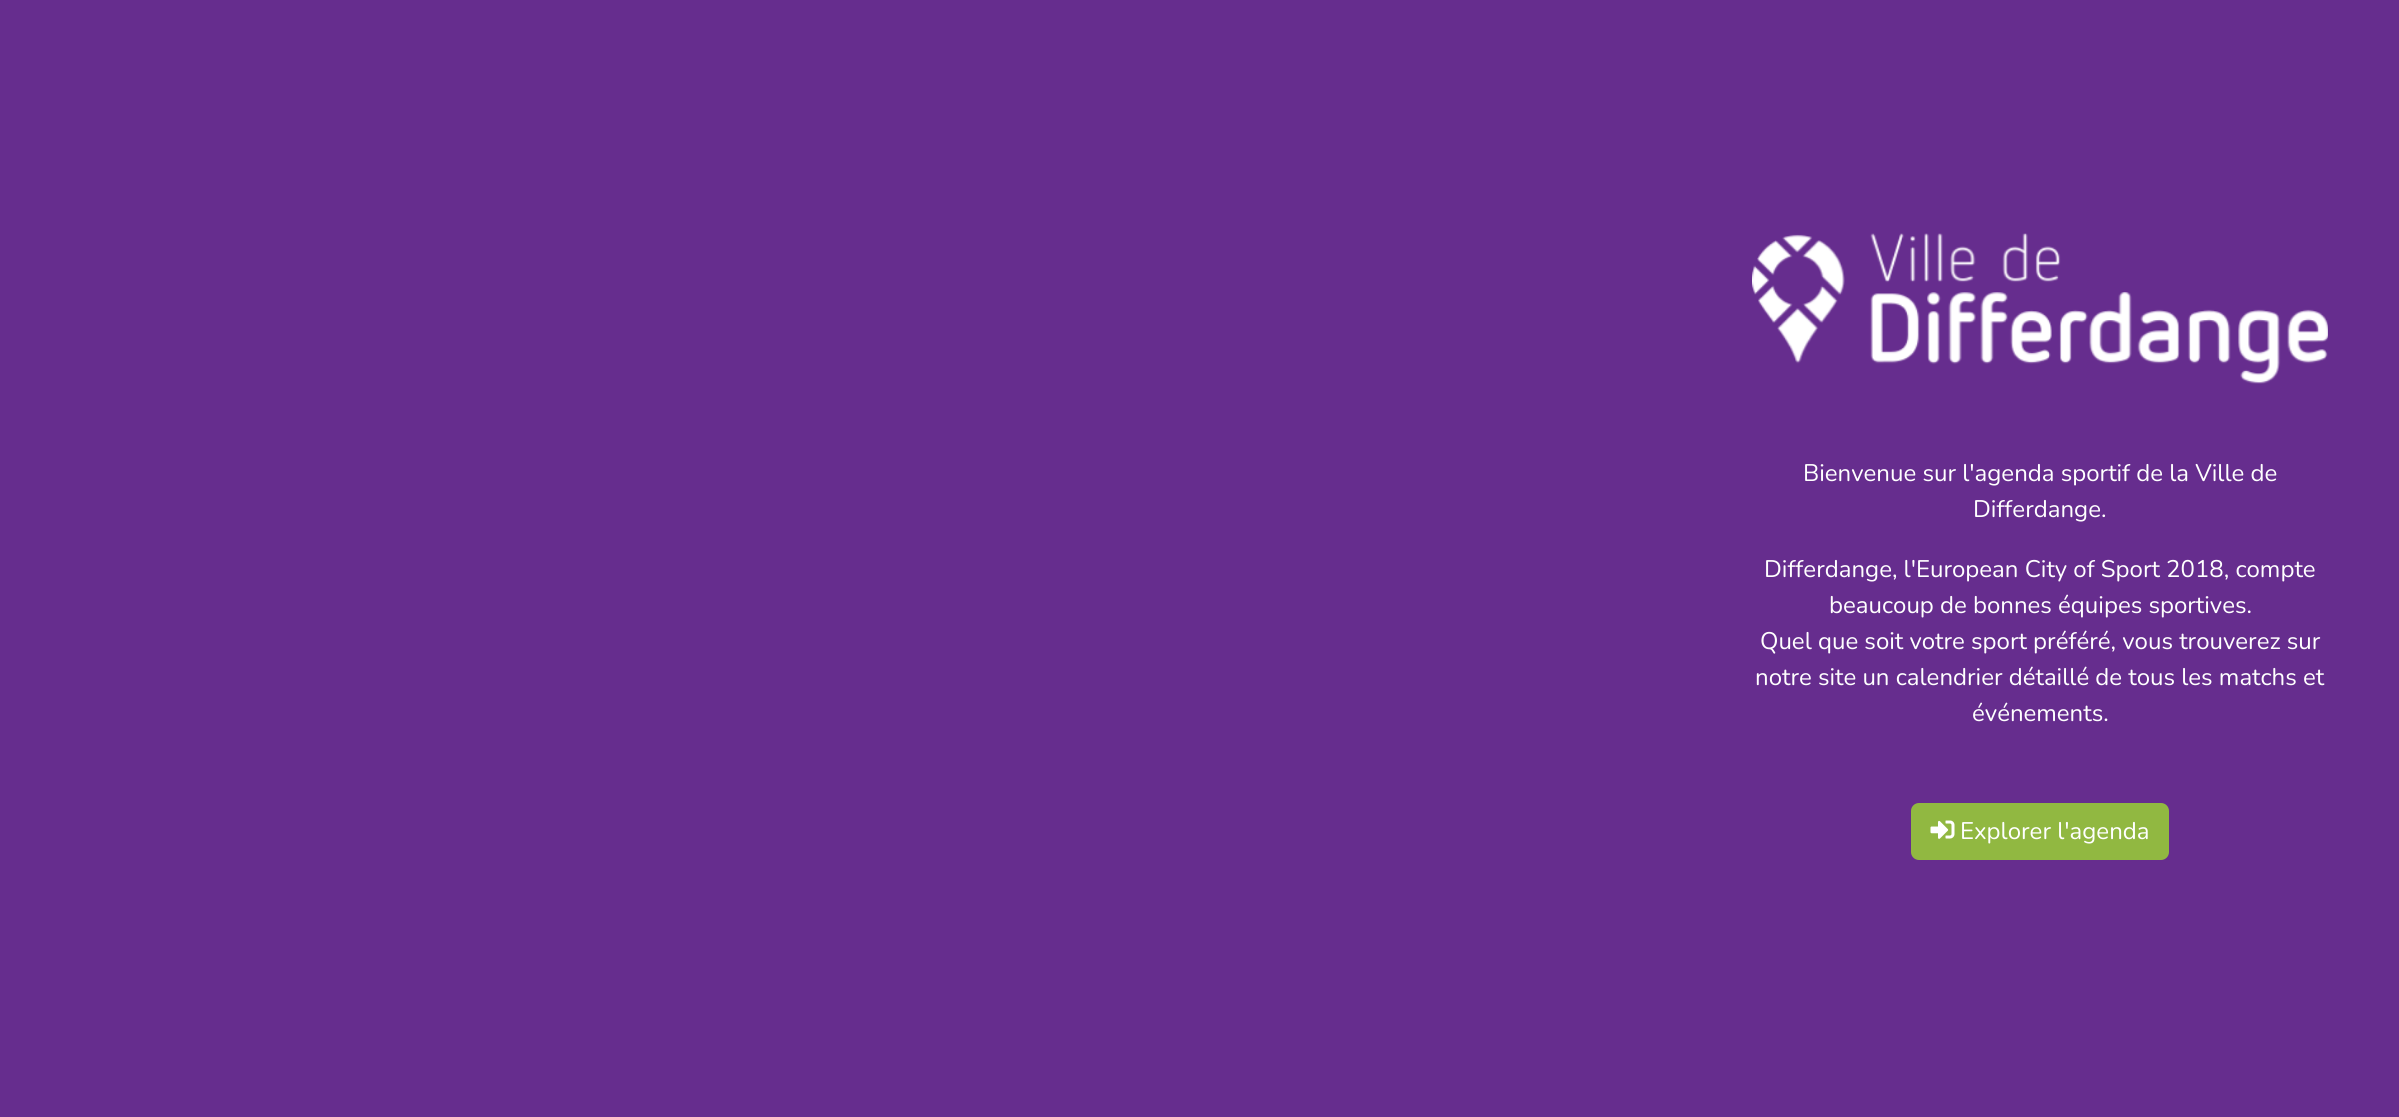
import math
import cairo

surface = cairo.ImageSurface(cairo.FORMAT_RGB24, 2399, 1117)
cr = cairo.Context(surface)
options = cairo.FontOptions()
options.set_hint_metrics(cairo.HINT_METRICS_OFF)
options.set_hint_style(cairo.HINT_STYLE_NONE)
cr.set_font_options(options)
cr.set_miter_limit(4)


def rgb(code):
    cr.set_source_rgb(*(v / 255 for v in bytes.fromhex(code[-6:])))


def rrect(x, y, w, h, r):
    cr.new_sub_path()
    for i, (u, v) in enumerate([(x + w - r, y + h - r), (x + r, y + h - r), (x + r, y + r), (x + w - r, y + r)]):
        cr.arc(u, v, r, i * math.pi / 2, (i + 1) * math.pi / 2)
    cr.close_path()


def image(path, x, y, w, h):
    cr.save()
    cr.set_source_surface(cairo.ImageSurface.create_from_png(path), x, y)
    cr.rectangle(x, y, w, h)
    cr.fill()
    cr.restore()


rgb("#662d8e")
cr.paint()
image("img/1.png", 1752, 233, 576, 151)
rgb("#91b841")
rrect(1912, 804, 256, 55, 7)
cr.fill_preserve()
cr.stroke()
image("img/2.png", 1930, 820, 25, 19)
cr.select_font_face("Nunito")
cr.set_font_size(24)
rgb("#ffffff")
for x, y, s in [
    (1803, 481, "Bienvenue sur l'agenda sportif de la Ville de"),
    (1973, 517, "Differdange."),
    (1764, 577, "Differdange, l'European City of Sport 2018, compte"),
    (1829, 613, "beaucoup de bonnes équipes sportives."),
    (1760, 649, "Quel que soit votre sport préféré, vous trouverez sur"),
    (1755, 685, "notre site un calendrier détaillé de tous les matchs et"),
    (1972, 721, "événements."),
    (1960, 839, "Explorer l'agenda"),
]:
    cr.move_to(x, y)
    cr.show_text(s)
surface.write_to_png("page.png")
